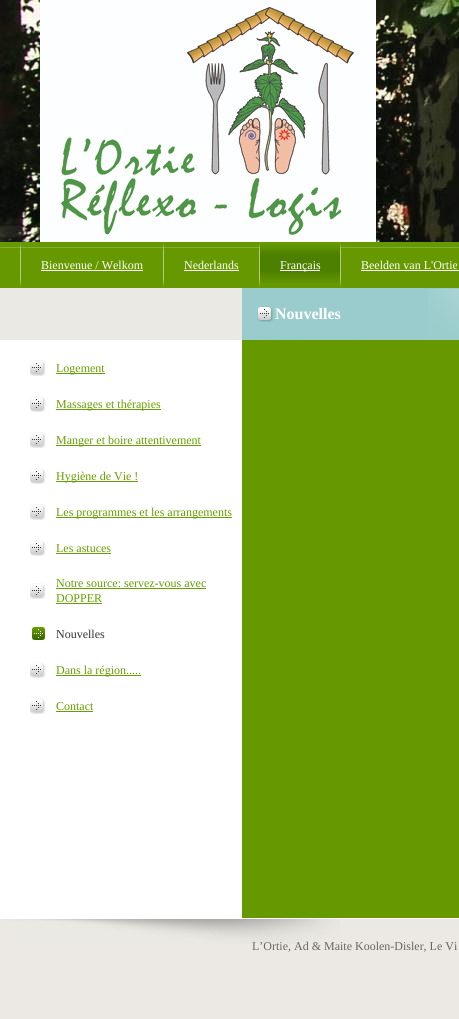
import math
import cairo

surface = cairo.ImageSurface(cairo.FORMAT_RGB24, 459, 1019)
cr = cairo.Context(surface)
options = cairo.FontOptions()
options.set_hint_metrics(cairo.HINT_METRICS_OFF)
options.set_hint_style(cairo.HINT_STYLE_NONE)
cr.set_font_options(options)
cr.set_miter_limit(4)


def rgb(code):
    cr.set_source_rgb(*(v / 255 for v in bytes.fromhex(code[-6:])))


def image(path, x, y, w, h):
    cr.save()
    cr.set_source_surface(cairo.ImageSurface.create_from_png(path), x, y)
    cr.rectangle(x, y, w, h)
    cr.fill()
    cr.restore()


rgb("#ffffff")
cr.paint()
image("img/1.png", 0, 0, 459, 242)
image("img/2.png", 40, 0, 336, 242)
image("img/3.png", 0, 242, 459, 46)
image("img/4.png", 20, 242, 1, 46)
rgb("#ffffff")
cr.rectangle(41, 270, 102, 1)
cr.fill()
image("img/4.png", 163, 242, 1, 46)
cr.rectangle(184, 270, 55, 1)
cr.fill()
image("img/4.png", 259, 242, 1, 46)
image("img/5.png", 260, 245, 20, 38)
image("img/6.png", 280, 245, 40, 38)
cr.rectangle(280, 270, 40, 1)
cr.fill()
image("img/5.png", 320, 245, 20, 38)
image("img/4.png", 340, 242, 1, 46)
cr.rectangle(361, 270, 98, 1)
cr.fill()
rgb("#ebe9e4")
cr.rectangle(0, 288, 242, 52)
cr.fill()
image("img/7.png", 242, 288, 217, 1)
image("img/8.png", 242, 289, 217, 51)
image("img/9.png", 257, 306, 16, 16)
image("img/10.png", 30, 360, 16, 16)
rgb("#679e02")
cr.rectangle(56, 373, 49, 1)
cr.fill()
image("img/10.png", 30, 396, 16, 16)
cr.rectangle(56, 409, 105, 1)
cr.fill()
image("img/10.png", 30, 432, 16, 16)
cr.rectangle(56, 445, 145, 1)
cr.fill()
image("img/10.png", 30, 468, 16, 16)
cr.rectangle(56, 481, 82, 1)
cr.fill()
image("img/10.png", 30, 504, 16, 16)
cr.rectangle(56, 517, 176, 1)
cr.fill()
image("img/10.png", 30, 540, 16, 16)
cr.rectangle(56, 553, 55, 1)
cr.fill()
image("img/10.png", 30, 583, 16, 16)
cr.rectangle(56, 588, 150, 1)
cr.fill()
cr.rectangle(56, 603, 46, 1)
cr.fill()
image("img/11.png", 32, 627, 13, 13)
image("img/10.png", 30, 662, 16, 16)
cr.rectangle(56, 675, 85, 1)
cr.fill()
image("img/10.png", 30, 698, 16, 16)
for x, y, w, h, color in [
    (56, 711, 37, 1, "#679e02"),
    (242, 340, 217, 578, "#669900"),
    (0, 919, 459, 100, "#ece9e4"),
]:
    rgb(color)
    cr.rectangle(x, y, w, h)
    cr.fill()
image("img/12.png", 5, 919, 335, 25)
cr.select_font_face("Liberation Serif")
cr.set_font_size(12)
rgb("#ffffff")
for x, y, s in [
    (41, 269, "Bienvenue / Welkom"),
    (184, 269, "Nederlands"),
    (280, 269, "Français"),
    (361, 269, "Beelden van L'Ortie"),
]:
    cr.move_to(x, y)
    cr.show_text(s)
cr.select_font_face("Liberation Serif", cairo.FONT_SLANT_NORMAL, cairo.FONT_WEIGHT_BOLD)
cr.set_font_size(16)
cr.move_to(275, 319)
cr.show_text("Nouvelles")
cr.select_font_face("Liberation Serif")
cr.set_font_size(12)
rgb("#679e02")
for x, y, s in [
    (56, 372, "Logement"),
    (56, 408, "Massages et thérapies"),
    (56, 444, "Manger et boire attentivement"),
    (56, 480, "Hygiène de Vie !"),
    (56, 516, "Les programmes et les arrangements"),
    (56, 552, "Les astuces"),
    (56, 587, "Notre source: servez-vous avec"),
    (56, 602, "DOPPER"),
]:
    cr.move_to(x, y)
    cr.show_text(s)
rgb("#333333")
cr.move_to(56, 638)
cr.show_text("Nouvelles")
rgb("#679e02")
cr.move_to(56, 674)
cr.show_text("Dans la région.....")
cr.move_to(56, 710)
cr.show_text("Contact")
rgb("#676662")
cr.move_to(252, 950)
cr.show_text("L’Ortie, Ad & Maite Koolen-Disler, Le Vi")
surface.write_to_png("page.png")
